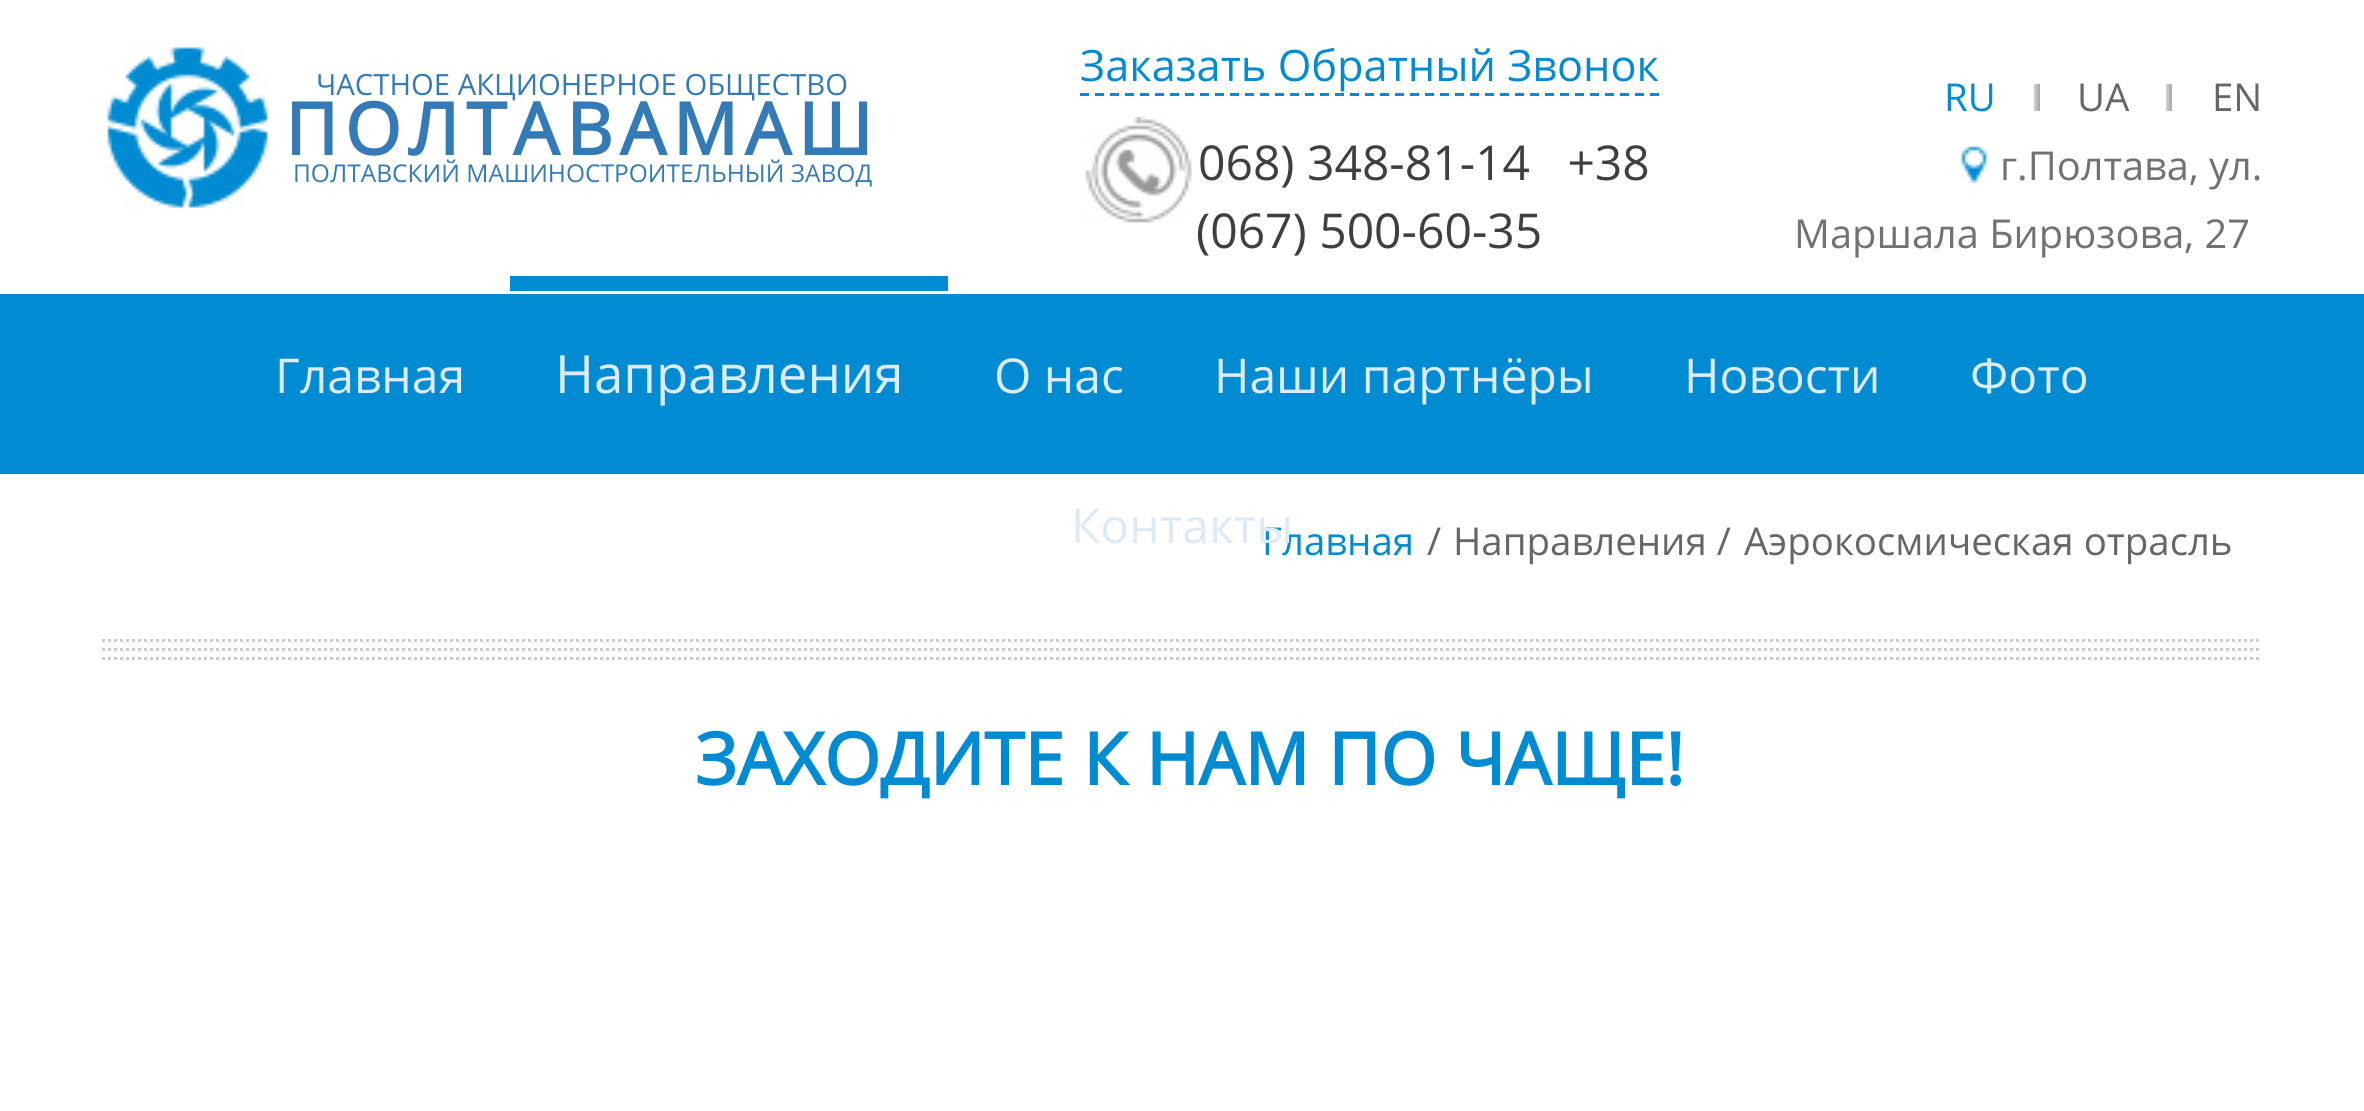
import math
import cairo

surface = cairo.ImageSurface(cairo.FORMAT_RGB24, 2364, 1111)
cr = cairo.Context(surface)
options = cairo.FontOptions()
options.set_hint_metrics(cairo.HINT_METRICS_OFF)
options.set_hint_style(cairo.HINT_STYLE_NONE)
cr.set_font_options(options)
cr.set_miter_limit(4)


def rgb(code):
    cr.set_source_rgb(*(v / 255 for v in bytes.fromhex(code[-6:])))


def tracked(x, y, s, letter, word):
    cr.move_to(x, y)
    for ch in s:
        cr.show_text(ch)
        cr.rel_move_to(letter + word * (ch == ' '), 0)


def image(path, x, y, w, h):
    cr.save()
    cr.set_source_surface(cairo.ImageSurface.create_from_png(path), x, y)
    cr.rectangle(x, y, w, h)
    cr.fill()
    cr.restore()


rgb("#ffffff")
cr.paint()
image("img/1.png", 102, 45, 168, 165)
cr.new_path()
cr.move_to(1080, 94.5)
cr.line_to(1659, 94.5)
rgb("#008dd1")
cr.set_line_width(3)
cr.set_dash([9, 6])
cr.stroke()
image("img/2.png", 1085, 117, 109, 106)
image("img/3.png", 2034, 84, 6, 27)
image("img/3.png", 2166, 84, 6, 27)
image("img/4.png", 1961, 146, 27, 37)
rgb("#018bd3")
cr.rectangle(0, 294, 2364, 180)
cr.fill()
cr.rectangle(510, 276, 438, 15)
cr.fill()
cr.new_path()
cr.move_to(102, 640.5)
cr.line_to(2262, 640.5)
rgb("#cccccc")
cr.set_dash([3, 3])
cr.stroke()
cr.new_path()
cr.move_to(102, 649.5)
cr.line_to(2262, 649.5)
cr.stroke()
cr.new_path()
cr.move_to(102, 658.5)
cr.line_to(2262, 658.5)
cr.stroke()
cr.select_font_face("Open Sans")
cr.set_font_size(29.25)
rgb("#337ab7")
cr.move_to(316, 95)
cr.show_text("ЧАСТНОЕ АКЦИОНЕРНОЕ ОБЩЕСТВО")
cr.select_font_face("Open Sans", cairo.FONT_SLANT_NORMAL, cairo.FONT_WEIGHT_BOLD)
cr.set_font_size(72)
tracked(285, 155, "ПОЛТАВАМАШ", 7.25, 0)
cr.select_font_face("Open Sans")
cr.set_font_size(24.5)
cr.move_to(293, 182)
cr.show_text("ПОЛТАВСКИЙ МАШИНОСТРОИТЕЛЬНЫЙ ЗАВОД")
cr.set_font_size(43.25)
rgb("#018bd3")
cr.move_to(1080, 81)
cr.show_text("Заказать Обратный Звонок")
cr.set_font_size(48)
rgb("#3f3f3f")
cr.move_to(1198, 180)
cr.show_text("068) 348-81-14   +38")
cr.move_to(1196, 248)
cr.show_text("(067) 500-60-35")
cr.set_font_size(38.4)
rgb("#018bd3")
cr.move_to(1944, 111)
cr.show_text("RU")
rgb("#666666")
cr.move_to(2077, 111)
cr.show_text("UA")
cr.move_to(2212, 111)
cr.show_text("EN")
cr.set_font_size(39.8)
rgb("#727272")
cr.move_to(2000, 180)
cr.show_text("г.Полтава, ул.")
cr.move_to(1794, 248)
cr.show_text("Маршала Бирюзова, 27")
cr.set_font_size(48)
rgb("#ddebf6")
cr.move_to(275, 393)
cr.show_text("Главная")
cr.set_font_size(52.75)
cr.move_to(555, 393)
cr.show_text("Направления")
cr.set_font_size(48)
for x, y, s in [
    (994, 393, "О нас"),
    (1214, 393, "Наши партнёры"),
    (1684, 393, "Новости"),
    (1970, 393, "Фото"),
]:
    cr.move_to(x, y)
    cr.show_text(s)
cr.set_font_size(38.4)
rgb("#018bd3")
cr.move_to(1262, 555)
cr.show_text("Главная")
cr.set_font_size(48)
rgb("#ddebf6")
cr.move_to(1071, 543)
cr.show_text("Контакты")
cr.set_font_size(38.4)
rgb("#666666")
for x, y, s in [
    (1427, 555, "/"),
    (1453, 555, "Направления /"),
    (1744, 555, "Аэрокосмическая отрасль"),
]:
    cr.move_to(x, y)
    cr.show_text(s)
cr.select_font_face("Open Sans", cairo.FONT_SLANT_NORMAL, cairo.FONT_WEIGHT_BOLD)
cr.set_font_size(72)
rgb("#018bd3")
cr.move_to(695, 785)
cr.show_text("ЗАХОДИТЕ К НАМ ПО ЧАЩЕ!")
surface.write_to_png("page.png")
